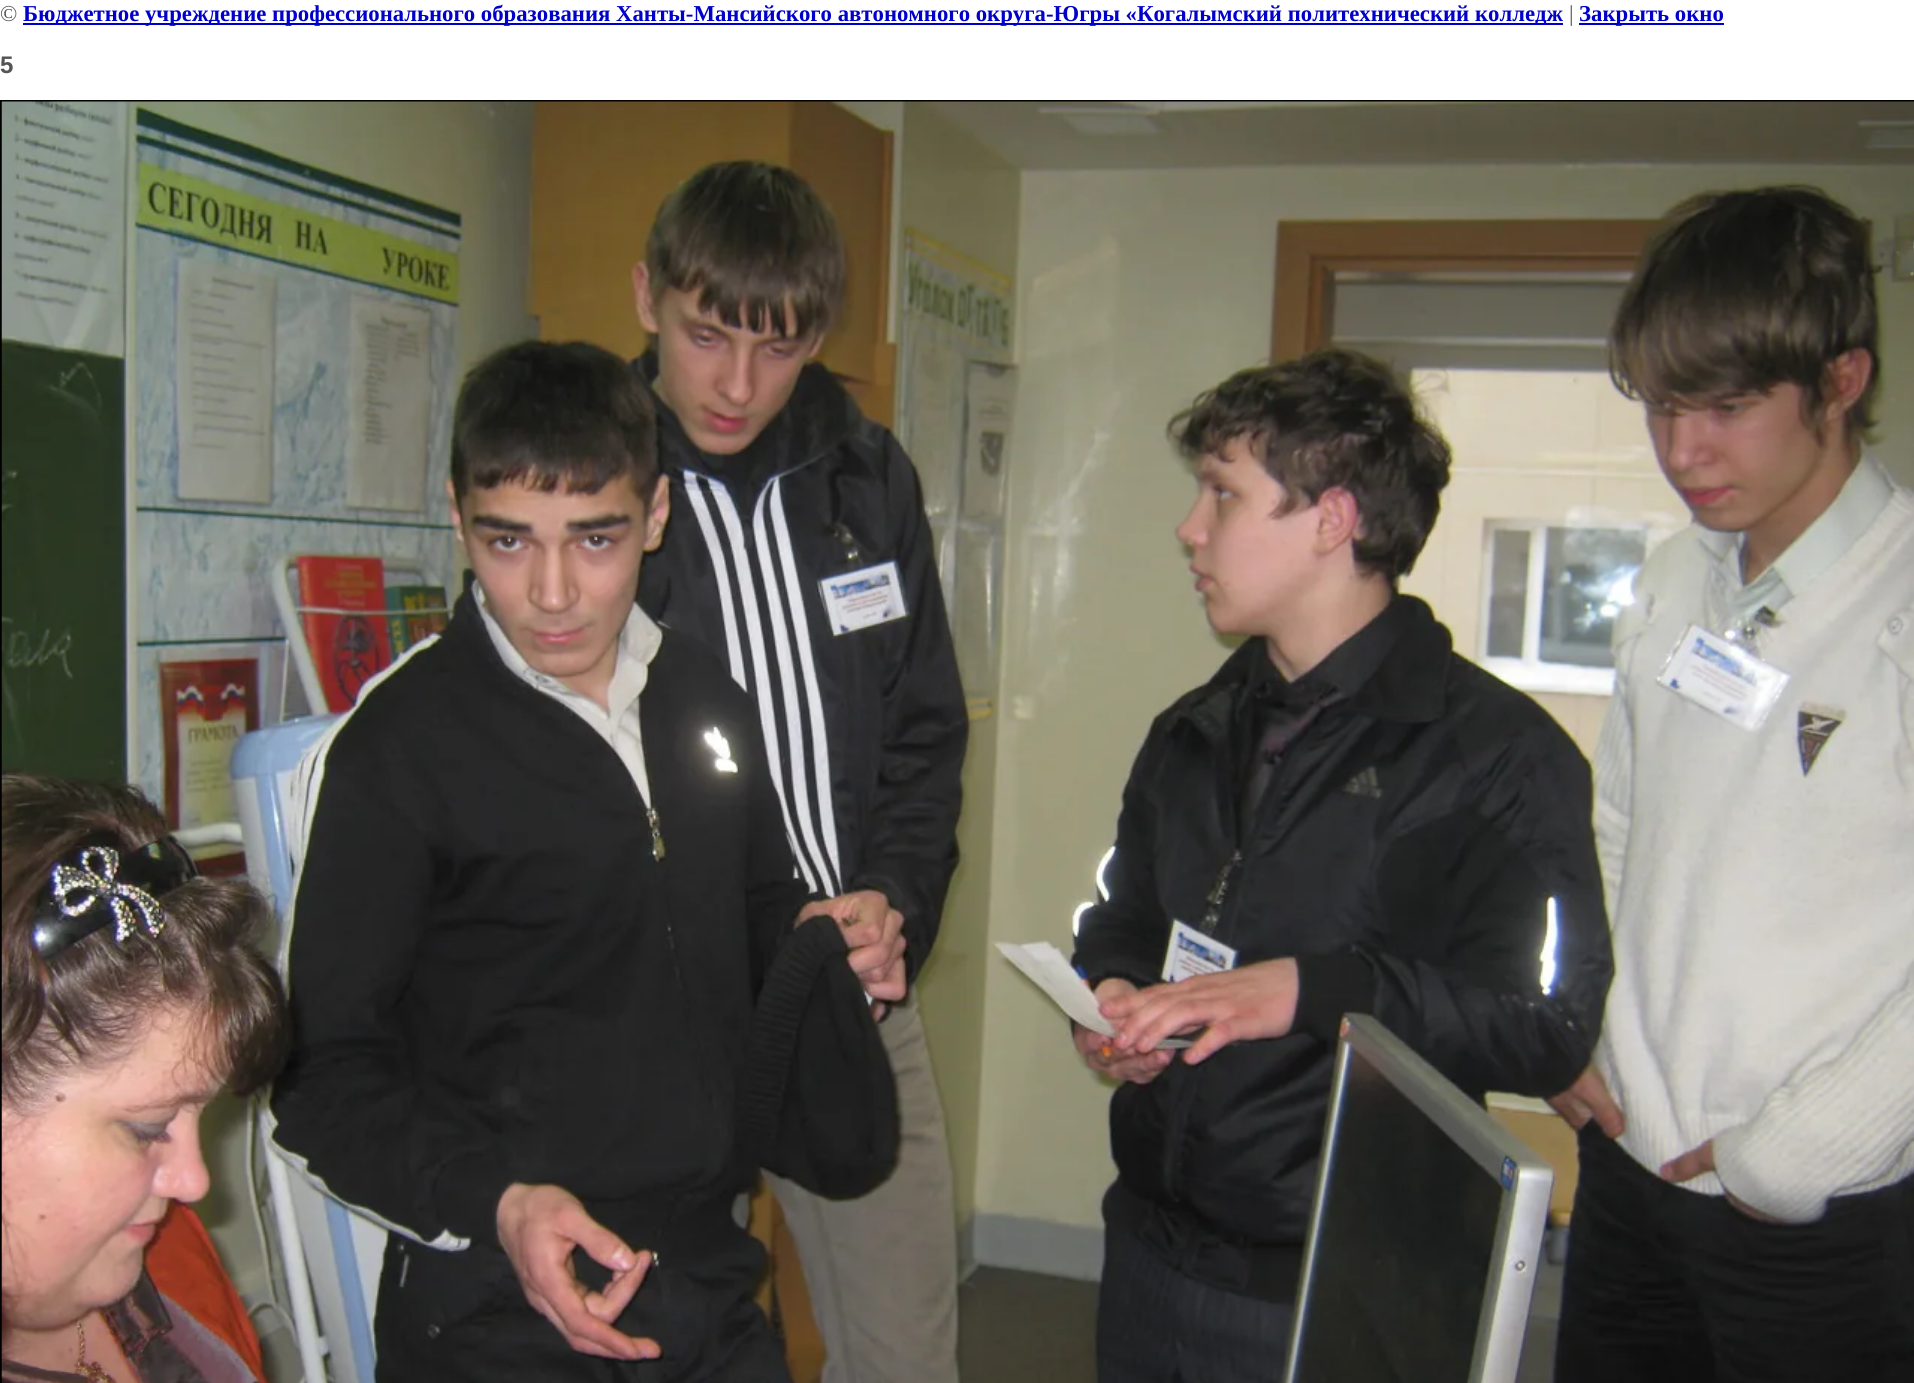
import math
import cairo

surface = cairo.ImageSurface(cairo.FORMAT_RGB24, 1914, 1383)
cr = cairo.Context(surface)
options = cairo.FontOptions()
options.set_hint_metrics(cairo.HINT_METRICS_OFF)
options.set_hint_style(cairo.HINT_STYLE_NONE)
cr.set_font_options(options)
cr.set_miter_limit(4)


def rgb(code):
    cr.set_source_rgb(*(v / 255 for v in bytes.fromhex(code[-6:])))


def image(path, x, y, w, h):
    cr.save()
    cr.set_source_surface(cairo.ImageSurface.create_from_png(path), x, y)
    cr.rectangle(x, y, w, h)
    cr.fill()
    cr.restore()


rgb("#ffffff")
cr.paint()
rgb("#0000cc")
cr.rectangle(23, 23, 1540, 2)
cr.fill()
cr.rectangle(1579, 23, 145, 2)
cr.fill()
cr.rectangle(1, 101, 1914, 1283)
rgb("#000000")
cr.stroke()
image("img/1.png", 1, 101, 1913, 1282)
cr.select_font_face("Liberation Serif")
cr.set_font_size(22.75)
rgb("#555555")
cr.move_to(0, 21)
cr.show_text("©")
cr.select_font_face("Liberation Serif", cairo.FONT_SLANT_NORMAL, cairo.FONT_WEIGHT_BOLD)
rgb("#0000cc")
cr.move_to(23, 21)
cr.show_text("Бюджетное учреждение профессионального образования Ханты-Мансийского автономного округа-Югры «Когалымский политехнический колледж")
cr.select_font_face("Liberation Serif")
rgb("#555555")
cr.move_to(1569, 21)
cr.show_text("|")
cr.select_font_face("Liberation Serif", cairo.FONT_SLANT_NORMAL, cairo.FONT_WEIGHT_BOLD)
rgb("#0000cc")
cr.move_to(1579, 21)
cr.show_text("Закрыть окно")
cr.select_font_face("Liberation Sans", cairo.FONT_SLANT_NORMAL, cairo.FONT_WEIGHT_BOLD)
cr.set_font_size(24)
rgb("#555555")
cr.move_to(0, 73)
cr.show_text("5")
surface.write_to_png("page.png")
